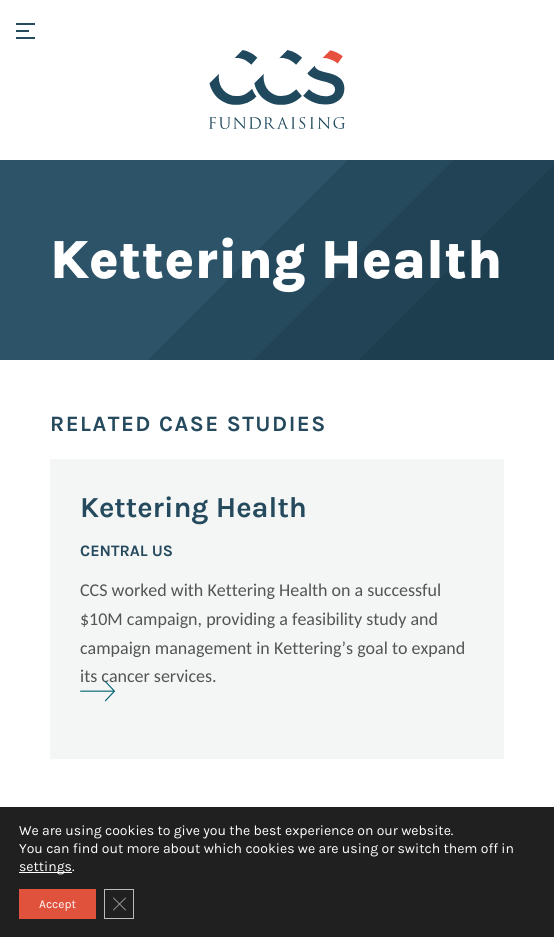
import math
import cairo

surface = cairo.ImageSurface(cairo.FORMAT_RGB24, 554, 937)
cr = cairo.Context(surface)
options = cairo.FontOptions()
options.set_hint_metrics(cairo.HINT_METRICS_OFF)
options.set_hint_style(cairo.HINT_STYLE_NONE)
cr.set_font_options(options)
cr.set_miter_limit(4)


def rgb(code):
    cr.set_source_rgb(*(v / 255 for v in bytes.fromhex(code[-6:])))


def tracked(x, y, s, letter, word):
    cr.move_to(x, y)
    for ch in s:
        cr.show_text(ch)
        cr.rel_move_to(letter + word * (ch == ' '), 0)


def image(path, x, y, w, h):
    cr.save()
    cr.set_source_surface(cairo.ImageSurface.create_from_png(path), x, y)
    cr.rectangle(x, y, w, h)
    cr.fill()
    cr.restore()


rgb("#ffffff")
cr.paint()
for x, y, w, h, color in [
    (16, 23, 19, 2, "#254a5d"),
    (16, 30, 13, 2, "#254a5d"),
    (16, 37, 19, 2, "#254a5d"),
]:
    rgb(color)
    cr.rectangle(x, y, w, h)
    cr.fill()
image("img/1.png", 209, 50, 136, 79)
gradient = cairo.LinearGradient(89, 72, 466, 449)
gradient.add_color_stop_rgba(0.46, 0.173, 0.325, 0.404, 1)
gradient.add_color_stop_rgba(0.46, 0.145, 0.29, 0.365, 1)
gradient.add_color_stop_rgba(0.6, 0.145, 0.29, 0.365, 1)
gradient.add_color_stop_rgba(0.6, 0.129, 0.263, 0.333, 1)
gradient.add_color_stop_rgba(0.74, 0.129, 0.263, 0.333, 1)
gradient.add_color_stop_rgba(0.74, 0.114, 0.243, 0.31, 1)
cr.set_source(gradient)
cr.rectangle(0, 160, 554, 200)
cr.fill()
for x, y, w, h, color in [
    (50, 459, 454, 300, "#f4f6f6"),
    (0, 807, 554, 130, "#202020"),
    (19, 872, 53, 1, "#ffffff"),
    (19, 889, 77, 30, "#e1523d"),
]:
    rgb(color)
    cr.rectangle(x, y, w, h)
    cr.fill()
cr.rectangle(104.5, 889.5, 29, 29)
rgb("#bcbcbc")
cr.set_line_width(1)
cr.stroke()
cr.new_path()
cr.move_to(125.5, 897.5)
cr.line_to(126, 898)
cr.line_to(113.5, 910.5)
cr.line_to(113, 910)
cr.close_path()
cr.fill()
cr.new_path()
cr.move_to(113, 898)
cr.line_to(113.5, 897.5)
cr.line_to(126, 910)
cr.line_to(125.5, 910.5)
cr.close_path()
cr.fill()
cr.select_font_face("Karla ExtraBold")
cr.set_font_size(55)
rgb("#ffffff")
cr.move_to(50, 278)
cr.show_text("Kettering Health")
cr.select_font_face("Karla", cairo.FONT_SLANT_NORMAL, cairo.FONT_WEIGHT_BOLD)
cr.set_font_size(22)
rgb("#254a5d")
tracked(50, 431, "RELATED CASE STUDIES", 1.5, 0)
cr.set_font_size(29)
cr.move_to(80, 517)
cr.show_text("Kettering Health")
cr.set_font_size(16)
cr.move_to(80, 556)
cr.show_text("CENTRAL US")
cr.select_font_face("Carlito")
cr.set_font_size(18)
rgb("#545454")
for x, y, s in [
    (80, 596, "CCS worked with Kettering Health on a successful"),
    (80, 625, "$10M campaign, providing a feasibility study and"),
    (80, 654, "campaign management in Kettering’s goal to expand"),
    (80, 682, "its cancer services."),
]:
    cr.move_to(x, y)
    cr.show_text(s)
image("img/2.png", 80, 681, 35, 21)
cr.select_font_face("Karla")
cr.set_font_size(14)
rgb("#ffffff")
for x, y, s in [
    (19, 835, "We are using cookies to give you the best experience on our website."),
    (19, 853, "You can find out more about which cookies we are using or switch them off in"),
    (19, 871, "settings."),
]:
    cr.move_to(x, y)
    cr.show_text(s)
cr.set_font_size(12)
cr.move_to(39, 908)
cr.show_text("Accept")
surface.write_to_png("page.png")
